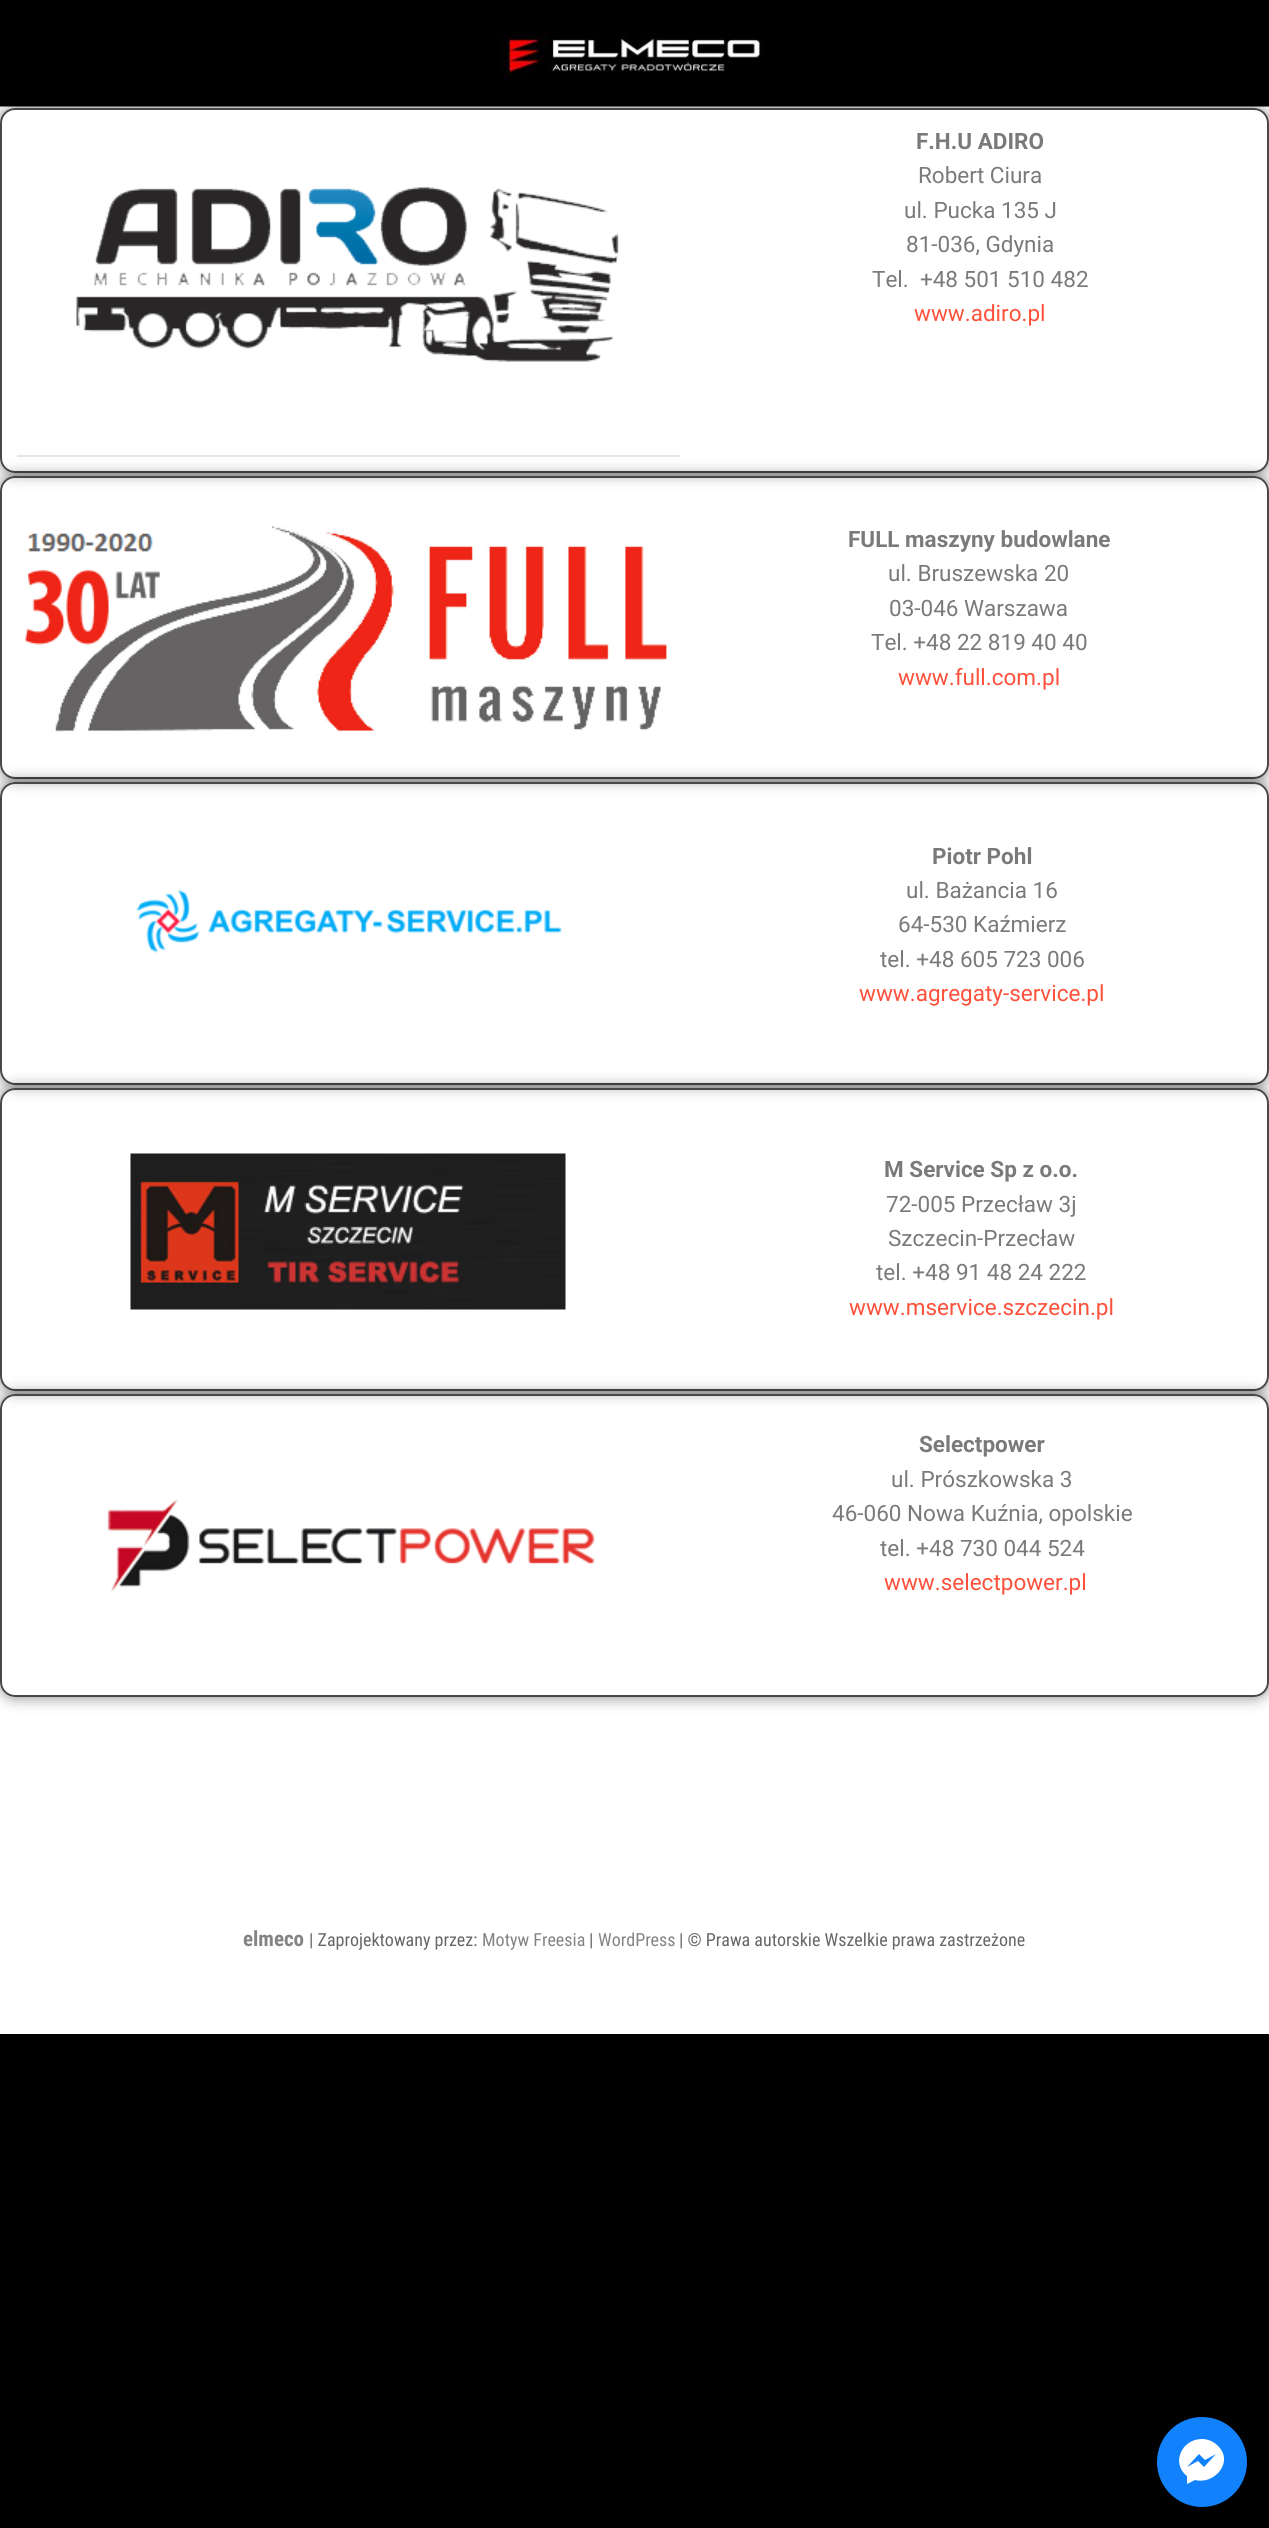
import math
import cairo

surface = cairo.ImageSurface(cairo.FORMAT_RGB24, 1269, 2528)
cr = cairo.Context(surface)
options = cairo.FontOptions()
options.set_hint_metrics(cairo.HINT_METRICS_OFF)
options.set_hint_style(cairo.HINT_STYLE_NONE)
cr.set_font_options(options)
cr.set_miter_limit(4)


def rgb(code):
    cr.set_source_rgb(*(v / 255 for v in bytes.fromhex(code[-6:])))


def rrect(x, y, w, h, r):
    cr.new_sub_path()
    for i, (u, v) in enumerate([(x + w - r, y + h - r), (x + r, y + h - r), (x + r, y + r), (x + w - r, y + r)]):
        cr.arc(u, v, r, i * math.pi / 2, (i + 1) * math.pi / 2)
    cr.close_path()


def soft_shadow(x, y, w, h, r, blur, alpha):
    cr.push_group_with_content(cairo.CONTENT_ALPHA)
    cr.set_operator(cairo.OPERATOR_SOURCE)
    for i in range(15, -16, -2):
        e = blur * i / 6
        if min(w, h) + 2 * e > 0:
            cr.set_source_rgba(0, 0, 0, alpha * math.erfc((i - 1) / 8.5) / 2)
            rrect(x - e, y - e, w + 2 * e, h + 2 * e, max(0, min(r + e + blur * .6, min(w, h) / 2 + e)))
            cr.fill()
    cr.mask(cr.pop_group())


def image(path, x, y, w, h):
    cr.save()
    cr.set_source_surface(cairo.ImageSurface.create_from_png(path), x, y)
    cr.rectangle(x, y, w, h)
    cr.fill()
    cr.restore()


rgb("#000000")
cr.paint()
rgb("#ffffff")
cr.rectangle(0, 106, 1269, 1928)
cr.fill()
image("img/1.png", 0, 0, 1269, 107)
cr.save()
cr.set_fill_rule(cairo.FILL_RULE_EVEN_ODD)
cr.new_path()
cr.move_to(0, 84)
cr.line_to(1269, 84)
cr.line_to(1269, 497)
cr.line_to(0, 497)
cr.close_path()
cr.move_to(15, 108)
cr.line_to(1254, 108)
cr.curve_to(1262.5, 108, 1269, 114.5, 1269, 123)
cr.line_to(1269, 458)
cr.curve_to(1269, 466.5, 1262.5, 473, 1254, 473)
cr.line_to(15, 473)
cr.curve_to(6.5, 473, 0, 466.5, 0, 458)
cr.line_to(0, 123)
cr.curve_to(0, 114.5, 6.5, 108, 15, 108)
cr.close_path()
cr.clip()
rgb("#000000")
soft_shadow(0, 108, 1269, 365, 15, 7.5, 0.5)
cr.restore()
rrect(1, 109, 1267, 363, 14)
rgb("#484848")
cr.stroke()
image("img/2.png", 76, 187, 543, 175)
rgb("#e6e6e6")
cr.rectangle(17, 455, 663, 2)
cr.fill()
cr.save()
cr.set_fill_rule(cairo.FILL_RULE_EVEN_ODD)
cr.new_path()
cr.move_to(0, 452)
cr.line_to(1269, 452)
cr.line_to(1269, 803)
cr.line_to(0, 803)
cr.close_path()
cr.move_to(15, 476)
cr.line_to(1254, 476)
cr.curve_to(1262.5, 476, 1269, 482.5, 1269, 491)
cr.line_to(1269, 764)
cr.curve_to(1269, 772.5, 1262.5, 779, 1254, 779)
cr.line_to(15, 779)
cr.curve_to(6.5, 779, 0, 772.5, 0, 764)
cr.line_to(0, 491)
cr.curve_to(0, 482.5, 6.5, 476, 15, 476)
cr.close_path()
cr.clip()
rgb("#000000")
soft_shadow(0, 476, 1269, 303, 15, 7.5, 0.5)
cr.restore()
rrect(1, 477, 1267, 301, 14)
rgb("#484848")
cr.stroke()
image("img/3.png", 25, 526, 642, 206)
cr.save()
cr.set_fill_rule(cairo.FILL_RULE_EVEN_ODD)
cr.new_path()
cr.move_to(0, 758)
cr.line_to(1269, 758)
cr.line_to(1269, 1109)
cr.line_to(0, 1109)
cr.close_path()
cr.move_to(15, 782)
cr.line_to(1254, 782)
cr.curve_to(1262.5, 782, 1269, 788.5, 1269, 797)
cr.line_to(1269, 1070)
cr.curve_to(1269, 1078.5, 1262.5, 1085, 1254, 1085)
cr.line_to(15, 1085)
cr.curve_to(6.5, 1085, 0, 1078.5, 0, 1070)
cr.line_to(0, 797)
cr.curve_to(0, 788.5, 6.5, 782, 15, 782)
cr.close_path()
cr.clip()
rgb("#000000")
soft_shadow(0, 782, 1269, 303, 15, 7.5, 0.5)
cr.restore()
rrect(1, 783, 1267, 301, 14)
cr.stroke()
image("img/4.png", 136, 889, 426, 64)
cr.save()
cr.set_fill_rule(cairo.FILL_RULE_EVEN_ODD)
cr.new_path()
cr.move_to(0, 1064)
cr.line_to(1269, 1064)
cr.line_to(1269, 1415)
cr.line_to(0, 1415)
cr.close_path()
cr.move_to(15, 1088)
cr.line_to(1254, 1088)
cr.curve_to(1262.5, 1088, 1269, 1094.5, 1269, 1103)
cr.line_to(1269, 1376)
cr.curve_to(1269, 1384.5, 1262.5, 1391, 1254, 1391)
cr.line_to(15, 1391)
cr.curve_to(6.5, 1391, 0, 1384.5, 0, 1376)
cr.line_to(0, 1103)
cr.curve_to(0, 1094.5, 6.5, 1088, 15, 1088)
cr.close_path()
cr.clip()
rgb("#000000")
soft_shadow(0, 1088, 1269, 303, 15, 7.5, 0.5)
cr.restore()
rrect(1, 1089, 1267, 301, 14)
cr.stroke()
image("img/5.png", 130, 1153, 436, 157)
cr.save()
cr.set_fill_rule(cairo.FILL_RULE_EVEN_ODD)
cr.new_path()
cr.move_to(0, 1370)
cr.line_to(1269, 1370)
cr.line_to(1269, 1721)
cr.line_to(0, 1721)
cr.close_path()
cr.move_to(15, 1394)
cr.line_to(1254, 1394)
cr.curve_to(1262.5, 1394, 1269, 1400.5, 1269, 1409)
cr.line_to(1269, 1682)
cr.curve_to(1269, 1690.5, 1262.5, 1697, 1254, 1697)
cr.line_to(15, 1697)
cr.curve_to(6.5, 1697, 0, 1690.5, 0, 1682)
cr.line_to(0, 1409)
cr.curve_to(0, 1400.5, 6.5, 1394, 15, 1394)
cr.close_path()
cr.clip()
rgb("#000000")
soft_shadow(0, 1394, 1269, 303, 15, 7.5, 0.5)
cr.restore()
rrect(1, 1395, 1267, 301, 14)
cr.stroke()
image("img/6.png", 107, 1499, 488, 93)
rgb("#1182fc")
cr.arc(1202, 2462, 45, 0, 2 * math.pi)
cr.fill()
rgb("#ffffff")
cr.new_path()
cr.move_to(1202, 2439)
cr.curve_to(1181, 2439, 1171, 2464, 1187, 2476)
cr.line_to(1187, 2484)
cr.line_to(1195, 2480)
cr.curve_to(1215, 2485, 1235, 2461, 1217, 2445)
cr.curve_to(1213, 2441, 1207, 2439, 1202, 2439)
cr.close_path()
cr.move_to(1204, 2467)
cr.line_to(1198, 2461)
cr.line_to(1187, 2467)
cr.line_to(1199, 2454)
cr.line_to(1205, 2460)
cr.line_to(1216, 2454)
cr.close_path()
cr.fill()
cr.select_font_face("Roboto", cairo.FONT_SLANT_NORMAL, cairo.FONT_WEIGHT_BOLD)
cr.set_font_size(22.5)
rgb("#7a7a7a")
cr.move_to(916, 149)
cr.show_text("F.H.U ADIRO")
cr.select_font_face("Roboto")
for x, y, s in [
    (918, 183, "Robert Ciura"),
    (904, 218, "ul. Pucka 135 J"),
    (906, 252, "81-036, Gdynia"),
    (872, 287, "Tel.  +48 501 510 482"),
]:
    cr.move_to(x, y)
    cr.show_text(s)
rgb("#fd513b")
cr.move_to(914, 321)
cr.show_text("www.adiro.pl")
cr.select_font_face("Roboto", cairo.FONT_SLANT_NORMAL, cairo.FONT_WEIGHT_BOLD)
rgb("#7a7a7a")
cr.move_to(848, 547)
cr.show_text("FULL maszyny budowlane")
cr.select_font_face("Roboto")
for x, y, s in [
    (888, 581, "ul. Bruszewska 20"),
    (889, 616, "03-046 Warszawa"),
    (871, 650, "Tel. +48 22 819 40 40"),
]:
    cr.move_to(x, y)
    cr.show_text(s)
rgb("#fd513b")
cr.move_to(898, 685)
cr.show_text("www.full.com.pl")
cr.select_font_face("Roboto", cairo.FONT_SLANT_NORMAL, cairo.FONT_WEIGHT_BOLD)
rgb("#7a7a7a")
cr.move_to(932, 864)
cr.show_text("Piotr Pohl")
cr.select_font_face("Roboto")
for x, y, s in [
    (906, 898, "ul. Bażancia 16"),
    (898, 932, "64-530 Kaźmierz"),
    (880, 967, "tel. +48 605 723 006"),
]:
    cr.move_to(x, y)
    cr.show_text(s)
rgb("#fd513b")
cr.move_to(859, 1001)
cr.show_text("www.agregaty-service.pl")
cr.select_font_face("Roboto", cairo.FONT_SLANT_NORMAL, cairo.FONT_WEIGHT_BOLD)
rgb("#7a7a7a")
cr.move_to(884, 1177)
cr.show_text("M Service Sp z o.o.")
cr.select_font_face("Roboto")
for x, y, s in [
    (886, 1212, "72-005 Przecław 3j"),
    (888, 1246, "Szczecin-Przecław"),
    (876, 1280, "tel. +48 91 48 24 222"),
]:
    cr.move_to(x, y)
    cr.show_text(s)
rgb("#fd513b")
cr.move_to(849, 1315)
cr.show_text("www.mservice.szczecin.pl")
cr.select_font_face("Roboto", cairo.FONT_SLANT_NORMAL, cairo.FONT_WEIGHT_BOLD)
rgb("#7a7a7a")
cr.move_to(919, 1452)
cr.show_text("Selectpower")
cr.select_font_face("Roboto")
for x, y, s in [
    (891, 1487, "ul. Prószkowska 3"),
    (832, 1521, "46-060 Nowa Kuźnia, opolskie"),
    (880, 1556, "tel. +48 730 044 524"),
]:
    cr.move_to(x, y)
    cr.show_text(s)
rgb("#fd513b")
cr.move_to(884, 1590)
cr.show_text("www.selectpower.pl")
cr.select_font_face("Roboto Condensed", cairo.FONT_SLANT_NORMAL, cairo.FONT_WEIGHT_BOLD)
cr.set_font_size(21)
rgb("#848484")
cr.move_to(243, 1946)
cr.show_text("elmeco")
cr.select_font_face("Roboto Condensed")
cr.set_font_size(18)
rgb("#666666")
cr.move_to(309, 1946)
cr.show_text("| Zaprojektowany przez:")
rgb("#848484")
cr.move_to(482, 1946)
cr.show_text("Motyw Freesia")
rgb("#666666")
cr.move_to(589, 1946)
cr.show_text("|")
rgb("#848484")
cr.move_to(598, 1946)
cr.show_text("WordPress")
rgb("#666666")
cr.move_to(679, 1946)
cr.show_text("| © Prawa autorskie Wszelkie prawa zastrzeżone")
surface.write_to_png("page.png")
